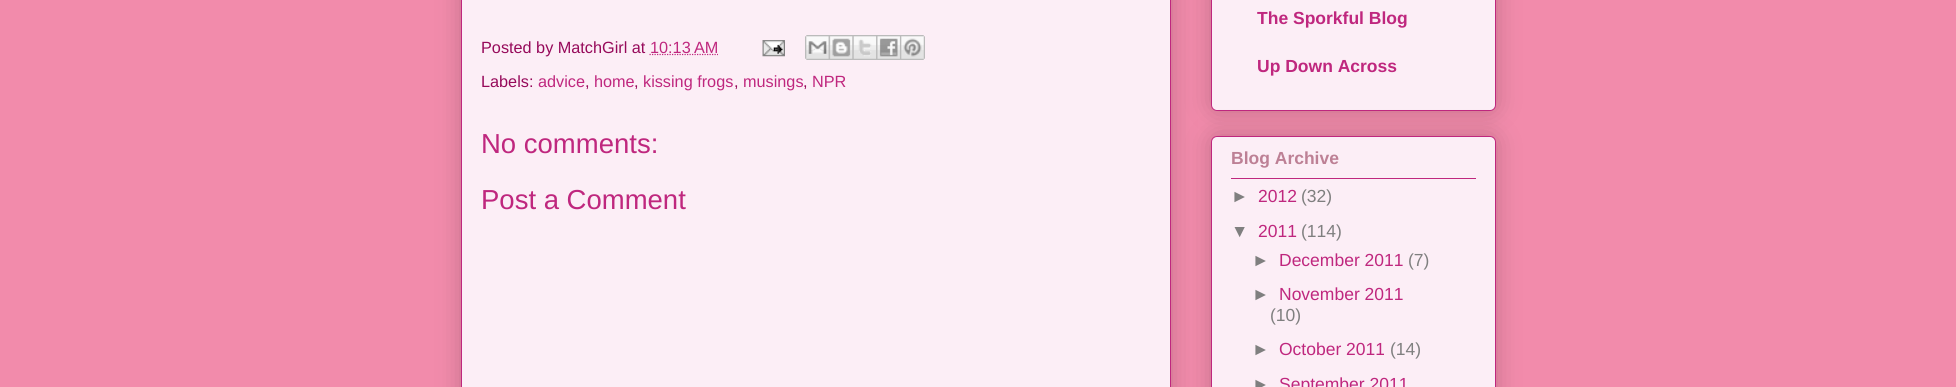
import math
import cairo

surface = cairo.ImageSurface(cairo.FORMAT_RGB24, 1956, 387)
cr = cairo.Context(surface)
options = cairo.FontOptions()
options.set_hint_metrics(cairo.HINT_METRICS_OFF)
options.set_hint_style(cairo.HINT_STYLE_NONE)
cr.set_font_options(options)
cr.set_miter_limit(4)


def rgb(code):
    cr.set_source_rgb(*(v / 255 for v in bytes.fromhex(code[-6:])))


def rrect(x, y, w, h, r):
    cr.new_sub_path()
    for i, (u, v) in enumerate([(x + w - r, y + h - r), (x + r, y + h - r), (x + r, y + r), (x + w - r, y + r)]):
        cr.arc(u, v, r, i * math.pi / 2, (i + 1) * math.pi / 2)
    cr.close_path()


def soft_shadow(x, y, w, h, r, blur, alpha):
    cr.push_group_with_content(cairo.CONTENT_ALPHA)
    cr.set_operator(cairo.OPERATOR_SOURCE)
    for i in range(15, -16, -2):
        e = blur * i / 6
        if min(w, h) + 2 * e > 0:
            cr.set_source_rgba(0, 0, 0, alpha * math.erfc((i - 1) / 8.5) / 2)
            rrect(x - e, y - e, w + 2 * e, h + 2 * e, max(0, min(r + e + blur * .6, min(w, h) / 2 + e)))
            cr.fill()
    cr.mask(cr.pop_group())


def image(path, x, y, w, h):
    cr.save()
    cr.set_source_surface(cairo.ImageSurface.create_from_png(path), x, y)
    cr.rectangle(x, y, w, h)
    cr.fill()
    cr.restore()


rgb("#f28bab")
cr.paint()
rgb("#000000")
soft_shadow(461, -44, 710, 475, 6, 12.5, 0.2)
rgb("#fceef6")
cr.rectangle(461.5, -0.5, 709, 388)
cr.fill_preserve()
rgb("#bf277e")
cr.set_line_width(1)
cr.stroke()
cr.new_path()
cr.move_to(649.5, 54.5)
cr.line_to(718, 54.5)
cr.set_line_width(1.2)
cr.set_dash([1.25, 1.25])
cr.stroke()
image("img/1.png", 762, 40, 23, 17)
image("img/2.png", 805, 35, 24, 25)
image("img/3.png", 828, 35, 25, 25)
image("img/4.png", 852, 35, 25, 25)
image("img/5.png", 876, 35, 24, 25)
image("img/6.png", 900, 35, 25, 25)
rgb("#000000")
soft_shadow(1211, -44, 285, 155, 6, 12.5, 0.2)
rgb("#fceef6")
rrect(1211.5, -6.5, 284, 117, 5.5)
cr.fill_preserve()
rgb("#bf277e")
cr.set_line_width(1)
cr.set_dash([])
cr.stroke()
rgb("#000000")
soft_shadow(1211, 136, 285, 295, 6, 12.5, 0.2)
rgb("#fceef6")
rrect(1211.5, 136.5, 284, 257, 5.5)
cr.fill_preserve()
rgb("#bf277e")
cr.stroke()
cr.rectangle(1231, 178, 245, 1)
cr.fill()
cr.select_font_face("Liberation Sans")
cr.set_font_size(16.25)
rgb("#96095a")
cr.move_to(481, 53)
cr.show_text("Posted by MatchGirl at")
rgb("#bf277e")
cr.move_to(650, 53)
cr.show_text("10:13 AM")
rgb("#96095a")
cr.move_to(481, 87)
cr.show_text("Labels:")
rgb("#bf277e")
for x, y, s in [
    (538, 87, "advice"),
    (594, 87, "home"),
    (643, 87, "kissing frogs"),
    (743, 87, "musings"),
    (812, 87, "NPR"),
]:
    cr.move_to(x, y)
    cr.show_text(s)
rgb("#96095a")
for x, y, s in [
    (585, 87, ","),
    (634, 87, ","),
    (734, 87, ","),
    (803, 87, ","),
]:
    cr.move_to(x, y)
    cr.show_text(s)
cr.set_font_size(27.5)
rgb("#bf277e")
cr.move_to(481, 153)
cr.show_text("No comments:")
cr.move_to(481, 209)
cr.show_text("Post a Comment")
cr.select_font_face("Liberation Sans", cairo.FONT_SLANT_NORMAL, cairo.FONT_WEIGHT_BOLD)
cr.set_font_size(17.5)
cr.move_to(1257, 24)
cr.show_text("The Sporkful Blog")
cr.move_to(1257, 72)
cr.show_text("Up Down Across")
rgb("#bd8095")
cr.move_to(1231, 164)
cr.show_text("Blog Archive")
cr.select_font_face("Liberation Sans")
rgb("#7f7f7f")
cr.move_to(1231, 202)
cr.show_text("►")
rgb("#bf277e")
cr.move_to(1258, 202)
cr.show_text("2012")
rgb("#7f7f7f")
cr.move_to(1301, 202)
cr.show_text("(32)")
cr.move_to(1231, 237)
cr.show_text("▼")
rgb("#bf277e")
cr.move_to(1258, 237)
cr.show_text("2011")
rgb("#7f7f7f")
cr.move_to(1301, 237)
cr.show_text("(114)")
cr.move_to(1252, 266)
cr.show_text("►")
rgb("#bf277e")
cr.move_to(1279, 266)
cr.show_text("December 2011")
rgb("#7f7f7f")
cr.move_to(1408, 266)
cr.show_text("(7)")
cr.move_to(1252, 300)
cr.show_text("►")
rgb("#bf277e")
cr.move_to(1279, 300)
cr.show_text("November 2011")
rgb("#7f7f7f")
cr.move_to(1270, 321)
cr.show_text("(10)")
cr.move_to(1252, 355)
cr.show_text("►")
rgb("#bf277e")
cr.move_to(1279, 355)
cr.show_text("October 2011")
rgb("#7f7f7f")
cr.move_to(1390, 355)
cr.show_text("(14)")
cr.move_to(1252, 390)
cr.show_text("►")
rgb("#bf277e")
cr.move_to(1279, 390)
cr.show_text("September 2011")
surface.write_to_png("page.png")
